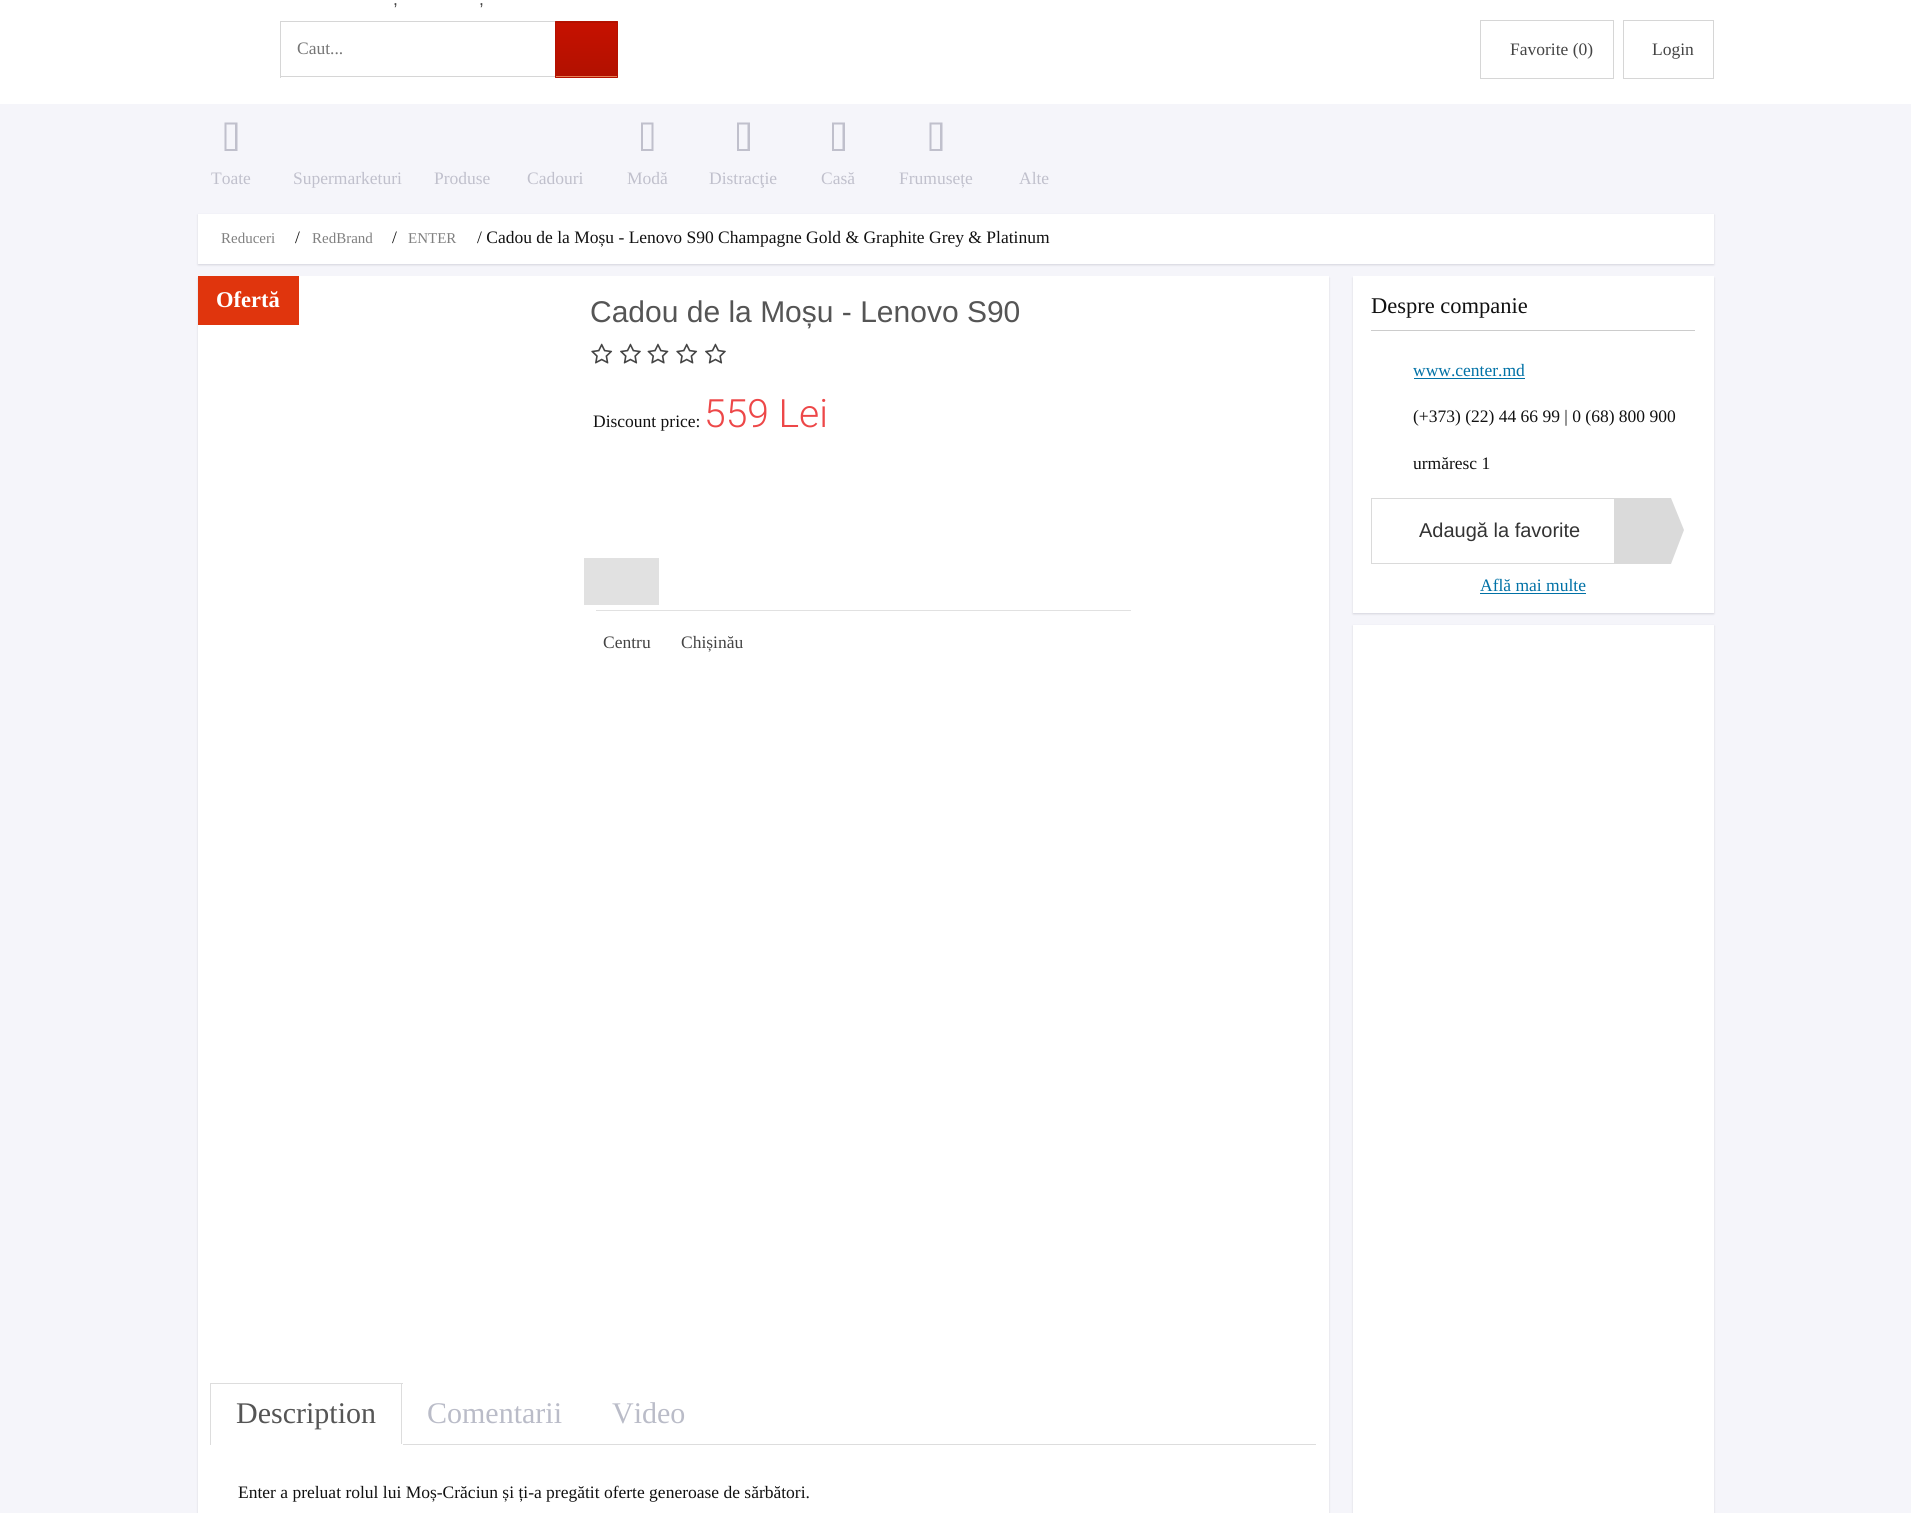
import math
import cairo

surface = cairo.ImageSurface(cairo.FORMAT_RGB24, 1911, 1513)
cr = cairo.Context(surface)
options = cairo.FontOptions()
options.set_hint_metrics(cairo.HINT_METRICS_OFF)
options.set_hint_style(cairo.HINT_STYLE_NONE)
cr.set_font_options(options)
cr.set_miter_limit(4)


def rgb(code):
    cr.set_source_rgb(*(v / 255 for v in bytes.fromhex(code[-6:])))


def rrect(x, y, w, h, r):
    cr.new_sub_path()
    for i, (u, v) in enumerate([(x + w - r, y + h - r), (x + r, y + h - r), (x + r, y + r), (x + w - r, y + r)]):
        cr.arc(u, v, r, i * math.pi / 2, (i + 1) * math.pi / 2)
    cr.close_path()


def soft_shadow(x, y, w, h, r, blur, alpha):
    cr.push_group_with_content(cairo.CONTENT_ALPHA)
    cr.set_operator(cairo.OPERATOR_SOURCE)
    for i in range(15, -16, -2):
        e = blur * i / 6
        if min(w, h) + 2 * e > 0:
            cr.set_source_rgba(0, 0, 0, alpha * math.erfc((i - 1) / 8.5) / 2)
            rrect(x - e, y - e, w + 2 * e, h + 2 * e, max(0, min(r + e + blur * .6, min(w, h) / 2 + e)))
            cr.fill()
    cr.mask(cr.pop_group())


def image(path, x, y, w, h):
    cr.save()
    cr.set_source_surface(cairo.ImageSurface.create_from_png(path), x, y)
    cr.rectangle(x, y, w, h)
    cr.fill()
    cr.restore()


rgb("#f5f5fa")
cr.paint()
for x, y, w, h, color in [
    (0, 0, 1911, 104, "#ffffff"),
    (280, 21, 275, 1, "#d6d6d6"),
    (280, 76, 275, 1, "#d6d6d6"),
    (280, 21, 1, 57, "#d6d6d6"),
]:
    rgb(color)
    cr.rectangle(x, y, w, h)
    cr.fill()
gradient = cairo.LinearGradient(586, -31, 586, 23)
gradient.add_color_stop_rgba(0.02, 0.902, 0.502, 0.337, 1)
gradient.add_color_stop_rgba(0.02, 0.776, 0.067, 0, 1)
gradient.add_color_stop_rgba(1, 0.698, 0.067, 0, 1)
cr.set_source(gradient)
cr.new_path()
cr.move_to(556, 21)
cr.line_to(617, 21)
cr.curve_to(617.5, 21, 618, 21.5, 618, 22)
cr.line_to(618, 23)
cr.line_to(555, 23)
cr.line_to(555, 22)
cr.curve_to(555, 21.5, 555.5, 21, 556, 21)
cr.close_path()
cr.fill()
gradient = cairo.LinearGradient(586, 22, 586, 76)
gradient.add_color_stop_rgba(0.02, 0.902, 0.502, 0.337, 1)
gradient.add_color_stop_rgba(0.02, 0.776, 0.067, 0, 1)
gradient.add_color_stop_rgba(1, 0.698, 0.067, 0, 1)
cr.set_source(gradient)
cr.rectangle(556, 23, 61, 53)
cr.fill()
gradient = cairo.LinearGradient(586, 76, 586, 130)
gradient.add_color_stop_rgba(0.02, 0.902, 0.502, 0.337, 1)
gradient.add_color_stop_rgba(0.02, 0.776, 0.067, 0, 1)
gradient.add_color_stop_rgba(1, 0.698, 0.067, 0, 1)
cr.set_source(gradient)
cr.new_path()
cr.move_to(555, 76)
cr.line_to(618, 76)
cr.line_to(618, 77)
cr.curve_to(618, 77.5, 617.5, 78, 617, 78)
cr.line_to(556, 78)
cr.curve_to(555.5, 78, 555, 77.5, 555, 77)
cr.close_path()
cr.fill()
rrect(555.5, 21.5, 62, 56, 0.5)
rgb("#b41100")
cr.set_line_width(1)
cr.stroke()
cr.rectangle(1480.5, 20.5, 133, 58)
rgb("#d6d6d6")
cr.stroke()
cr.rectangle(1623.5, 20.5, 90, 58)
cr.stroke()
rgb("#c0c0cc")
cr.new_path()
cr.move_to(226.5, 149)
cr.line_to(226.5, 124.5)
cr.line_to(235, 124.5)
cr.line_to(235, 149)
cr.close_path()
cr.move_to(224.5, 151)
cr.line_to(237.5, 151)
cr.line_to(237.5, 122.5)
cr.line_to(224.5, 122.5)
cr.close_path()
cr.fill()
cr.new_path()
cr.move_to(643, 149)
cr.line_to(643, 124.5)
cr.line_to(651.5, 124.5)
cr.line_to(651.5, 149)
cr.close_path()
cr.move_to(641, 151)
cr.line_to(653.5, 151)
cr.line_to(653.5, 122.5)
cr.line_to(641, 122.5)
cr.close_path()
cr.fill()
cr.new_path()
cr.move_to(739, 149)
cr.line_to(739, 124.5)
cr.line_to(747.5, 124.5)
cr.line_to(747.5, 149)
cr.close_path()
cr.move_to(737, 151)
cr.line_to(750, 151)
cr.line_to(750, 122.5)
cr.line_to(737, 122.5)
cr.close_path()
cr.fill()
cr.new_path()
cr.move_to(834, 149)
cr.line_to(834, 124.5)
cr.line_to(842.5, 124.5)
cr.line_to(842.5, 149)
cr.close_path()
cr.move_to(832, 151)
cr.line_to(845, 151)
cr.line_to(845, 122.5)
cr.line_to(832, 122.5)
cr.close_path()
cr.fill()
cr.new_path()
cr.move_to(931.5, 149)
cr.line_to(931.5, 124.5)
cr.line_to(940, 124.5)
cr.line_to(940, 149)
cr.close_path()
cr.move_to(929.5, 151)
cr.line_to(942.5, 151)
cr.line_to(942.5, 122.5)
cr.line_to(929.5, 122.5)
cr.close_path()
cr.fill()
rgb("#525266")
soft_shadow(198, 215, 1516, 50, 0, 1, 0.2)
rgb("#ffffff")
cr.rectangle(198, 214, 1516, 50)
cr.fill()
rgb("#525266")
soft_shadow(198, 278, 1131, 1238, 0, 1, 0.2)
rgb("#ffffff")
cr.rectangle(198, 276, 1131, 1237)
cr.fill()
rgb("#e0350d")
cr.rectangle(198, 276, 101, 49)
cr.fill()
image("img/1.png", 591, 343, 22, 21)
image("img/2.png", 620, 343, 21, 21)
image("img/3.png", 647, 343, 22, 21)
image("img/1.png", 676, 343, 22, 21)
image("img/2.png", 705, 343, 21, 21)
for x, y, w, h, color in [
    (584, 558, 75, 47, "#e1e1e1"),
    (596, 610, 535, 1, "#e1e1e1"),
    (403, 1444, 913, 1, "#dddddd"),
    (210, 1383, 193, 1, "#dddddd"),
    (401, 1383, 1, 62, "#dddddd"),
    (401, 1444, 2, 1, "#ffffff"),
    (210, 1383, 1, 62, "#dddddd"),
]:
    rgb(color)
    cr.rectangle(x, y, w, h)
    cr.fill()
rgb("#525266")
soft_shadow(1353, 278, 361, 336, 0, 1, 0.2)
for x, y, w, h, color in [
    (1353, 276, 361, 337, "#ffffff"),
    (1371, 330, 324, 1, "#cccccc"),
    (1414, 378, 111, 1, "#0071a6"),
]:
    rgb(color)
    cr.rectangle(x, y, w, h)
    cr.fill()
cr.rectangle(1371.5, 498.5, 243, 65)
rgb("#dadada")
cr.stroke()
cr.rectangle(1615, 498, 56, 66)
cr.fill()
cr.new_path()
cr.move_to(1671, 564)
cr.line_to(1671, 498)
cr.line_to(1684, 530)
cr.close_path()
cr.fill()
rgb("#0071a6")
cr.rectangle(1480, 593, 106, 1)
cr.fill()
rgb("#525266")
soft_shadow(1353, 626, 361, 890, 0, 1, 0.2)
rgb("#ffffff")
cr.rectangle(1353, 625, 361, 888)
cr.fill()
cr.select_font_face("Liberation Sans")
cr.set_font_size(17.5)
rgb("#444444")
cr.move_to(393, 5)
cr.show_text(",")
cr.move_to(479, 5)
cr.show_text(",")
cr.select_font_face("Liberation Serif")
rgb("#757575")
cr.move_to(297, 54)
cr.show_text("Caut...")
rgb("#444444")
cr.move_to(1510, 55)
cr.show_text("Favorite (0)")
cr.move_to(1652, 55)
cr.show_text("Login")
rgb("#c0c0cc")
for x, y, s in [
    (211, 184, "Toate"),
    (293, 184, "Supermarketuri"),
    (434, 184, "Produse"),
    (527, 184, "Cadouri"),
    (627, 184, "Modă"),
    (709, 184, "Distracţie"),
    (821, 184, "Casă"),
    (899, 184, "Frumusețe"),
    (1019, 184, "Alte"),
]:
    cr.move_to(x, y)
    cr.show_text(s)
cr.set_font_size(15)
rgb("#808080")
cr.move_to(221, 243)
cr.show_text("Reduceri")
cr.set_font_size(17.5)
rgb("#111111")
cr.move_to(295, 243)
cr.show_text("/")
cr.set_font_size(15)
rgb("#808080")
cr.move_to(312, 243)
cr.show_text("RedBrand")
cr.set_font_size(17.5)
rgb("#111111")
cr.move_to(392, 243)
cr.show_text("/")
cr.set_font_size(15)
rgb("#808080")
cr.move_to(408, 243)
cr.show_text("ENTER")
cr.set_font_size(17.5)
rgb("#111111")
cr.move_to(477, 243)
cr.show_text("/ Cadou de la Moșu - Lenovo S90 Champagne Gold & Graphite Grey & Platinum")
cr.select_font_face("Liberation Serif", cairo.FONT_SLANT_NORMAL, cairo.FONT_WEIGHT_BOLD)
cr.set_font_size(22.5)
rgb("#ffffff")
cr.move_to(216, 307)
cr.show_text("Ofertă")
cr.select_font_face("Liberation Sans")
cr.set_font_size(30)
rgb("#555555")
cr.move_to(590, 322)
cr.show_text("Cadou de la Moșu - Lenovo S90")
cr.select_font_face("Liberation Serif")
cr.set_font_size(17.5)
rgb("#111111")
cr.move_to(593, 427)
cr.show_text("Discount price:")
cr.select_font_face("Roboto Light")
cr.set_font_size(39)
rgb("#ed4748")
cr.move_to(704, 427)
cr.show_text("559 Lei")
cr.select_font_face("Liberation Serif")
cr.set_font_size(17.5)
rgb("#444444")
cr.move_to(603, 648)
cr.show_text("Centru")
cr.move_to(681, 648)
cr.show_text("Chișinău")
cr.set_font_size(30)
rgb("#555555")
cr.move_to(236, 1423)
cr.show_text("Description")
rgb("#babcc8")
cr.move_to(427, 1423)
cr.show_text("Comentarii")
cr.move_to(612, 1423)
cr.show_text("Video")
cr.set_font_size(17.5)
rgb("#111111")
cr.move_to(238, 1498)
cr.show_text("Enter a preluat rolul lui Moș-Crăciun și ți-a pregătit oferte generoase de sărbători.")
cr.set_font_size(22.5)
cr.move_to(1371, 313)
cr.show_text("Despre companie")
cr.set_font_size(17.5)
rgb("#0071a6")
cr.move_to(1413, 376)
cr.show_text("www.center.md")
rgb("#111111")
cr.move_to(1413, 422)
cr.show_text("(+373) (22) 44 66 99 | 0 (68) 800 900")
cr.move_to(1413, 469)
cr.show_text("urmăresc 1")
cr.select_font_face("Liberation Sans")
cr.set_font_size(20)
rgb("#333333")
cr.move_to(1419, 537)
cr.show_text("Adaugă la favorite")
cr.select_font_face("Liberation Serif")
cr.set_font_size(17.5)
rgb("#0071a6")
cr.move_to(1480, 591)
cr.show_text("Află mai multe")
surface.write_to_png("page.png")
